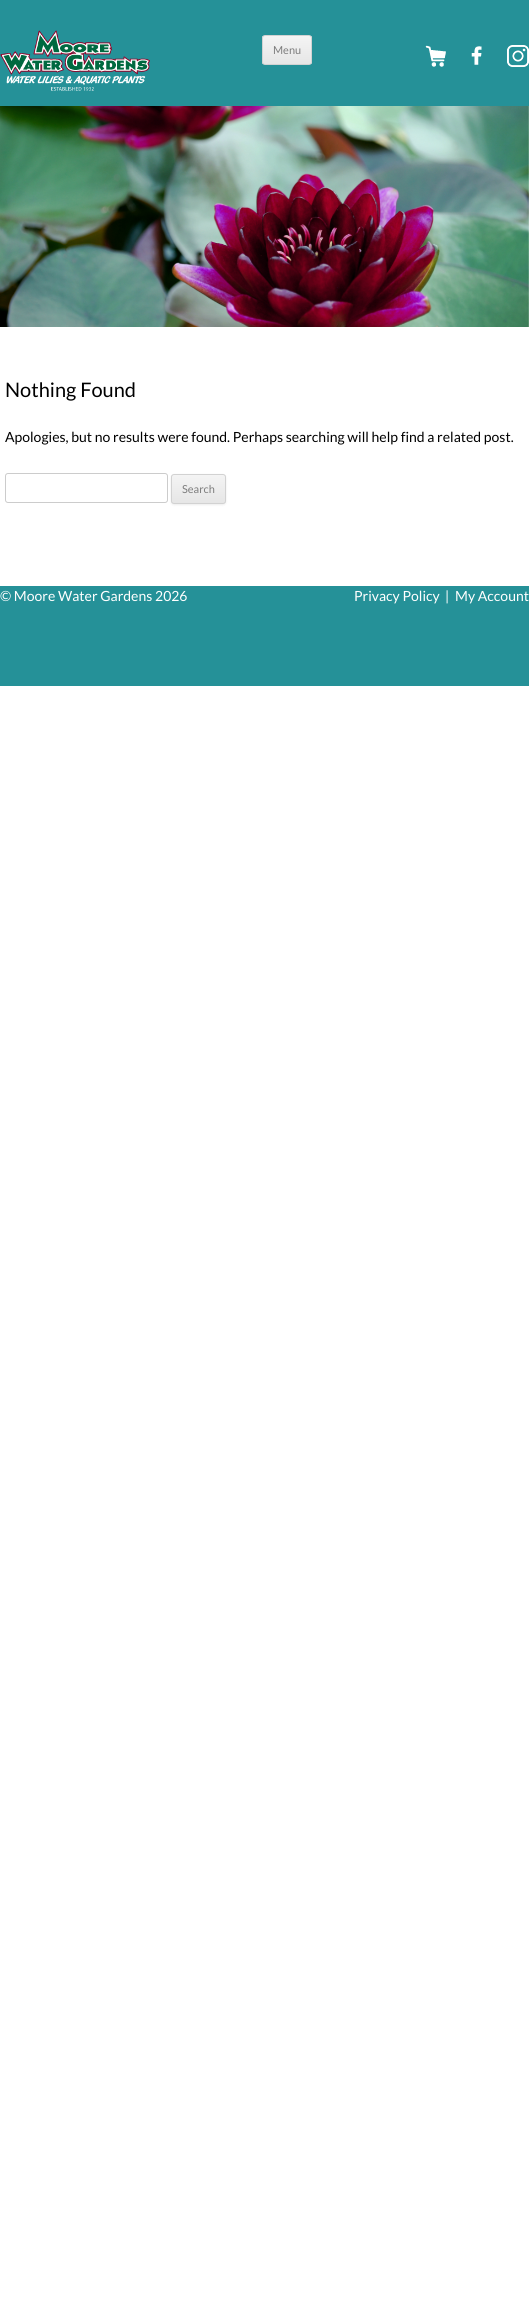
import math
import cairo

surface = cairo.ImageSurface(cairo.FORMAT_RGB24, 529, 2300)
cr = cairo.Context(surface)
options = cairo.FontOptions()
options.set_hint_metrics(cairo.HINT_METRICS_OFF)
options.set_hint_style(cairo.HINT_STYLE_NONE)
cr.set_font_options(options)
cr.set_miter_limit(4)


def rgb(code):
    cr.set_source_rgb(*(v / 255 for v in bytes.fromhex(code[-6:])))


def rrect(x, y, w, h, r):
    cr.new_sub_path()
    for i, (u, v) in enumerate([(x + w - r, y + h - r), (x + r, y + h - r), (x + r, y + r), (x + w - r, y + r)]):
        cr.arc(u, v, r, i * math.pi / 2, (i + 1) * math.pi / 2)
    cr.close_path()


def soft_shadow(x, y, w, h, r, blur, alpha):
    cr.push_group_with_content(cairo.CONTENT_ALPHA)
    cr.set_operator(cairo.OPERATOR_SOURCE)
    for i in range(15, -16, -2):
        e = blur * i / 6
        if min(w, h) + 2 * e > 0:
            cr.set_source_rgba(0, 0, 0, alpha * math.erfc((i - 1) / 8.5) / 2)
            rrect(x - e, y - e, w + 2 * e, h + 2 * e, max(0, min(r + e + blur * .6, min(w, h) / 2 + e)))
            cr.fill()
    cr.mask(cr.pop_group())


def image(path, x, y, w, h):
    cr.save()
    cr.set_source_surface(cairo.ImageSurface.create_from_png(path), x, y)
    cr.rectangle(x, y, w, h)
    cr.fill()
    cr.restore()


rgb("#ffffff")
cr.paint()
rgb("#259198")
cr.rectangle(0, 0, 529, 106)
cr.fill()
image("img/1.png", 0, 30, 150, 61)
cr.save()
rrect(262, 35, 50, 30, 3)
cr.clip()
gradient = cairo.LinearGradient(287, 36, 287, 64)
gradient.add_color_stop_rgba(0, 0.957, 0.957, 0.957, 1)
gradient.add_color_stop_rgba(1, 0.902, 0.902, 0.902, 1)
cr.set_source(gradient)
cr.rectangle(262, 36, 50, 28)
cr.fill()
cr.restore()
rrect(262.5, 35.5, 49, 29, 2.5)
rgb("#d2d2d2")
cr.set_line_width(1)
cr.stroke()
image("img/2.png", 425, 45, 21, 22)
image("img/3.png", 471, 46, 11, 19)
image("img/4.png", 507, 45, 22, 22)
image("img/5.png", 0, 106, 529, 221)
rrect(5.5, 473.5, 162, 29, 2.5)
rgb("#cccccc")
cr.stroke()
rgb("#404040")
soft_shadow(171, 475, 55, 30, 3, 1, 0.1)
cr.save()
rrect(171, 474, 55, 30, 3)
cr.clip()
gradient = cairo.LinearGradient(199, 475, 199, 503)
gradient.add_color_stop_rgba(0, 0.957, 0.957, 0.957, 1)
gradient.add_color_stop_rgba(1, 0.902, 0.902, 0.902, 1)
cr.set_source(gradient)
cr.rectangle(171, 475, 55, 28)
cr.fill()
cr.restore()
rrect(171.5, 474.5, 54, 29, 2.5)
rgb("#d2d2d2")
cr.stroke()
rgb("#259198")
cr.rectangle(0, 586, 529, 100)
cr.fill()
cr.select_font_face("Lato")
cr.set_font_size(11)
rgb("#7c7c7c")
cr.move_to(273, 54)
cr.show_text("Menu")
cr.set_font_size(20)
rgb("#000000")
cr.move_to(5, 397)
cr.show_text("Nothing Found")
cr.set_font_size(14)
cr.move_to(5, 442)
cr.show_text("Apologies, but no results were found. Perhaps searching will help find a related post.")
cr.set_font_size(11)
rgb("#7c7c7c")
cr.move_to(182, 493)
cr.show_text("Search")
cr.set_font_size(14)
rgb("#ffffff")
for x, y, s in [
    (0, 601, "© Moore Water Gardens 2026"),
    (354, 601, "Privacy Policy"),
    (445, 601, "|"),
    (455, 601, "My Account"),
]:
    cr.move_to(x, y)
    cr.show_text(s)
surface.write_to_png("page.png")
